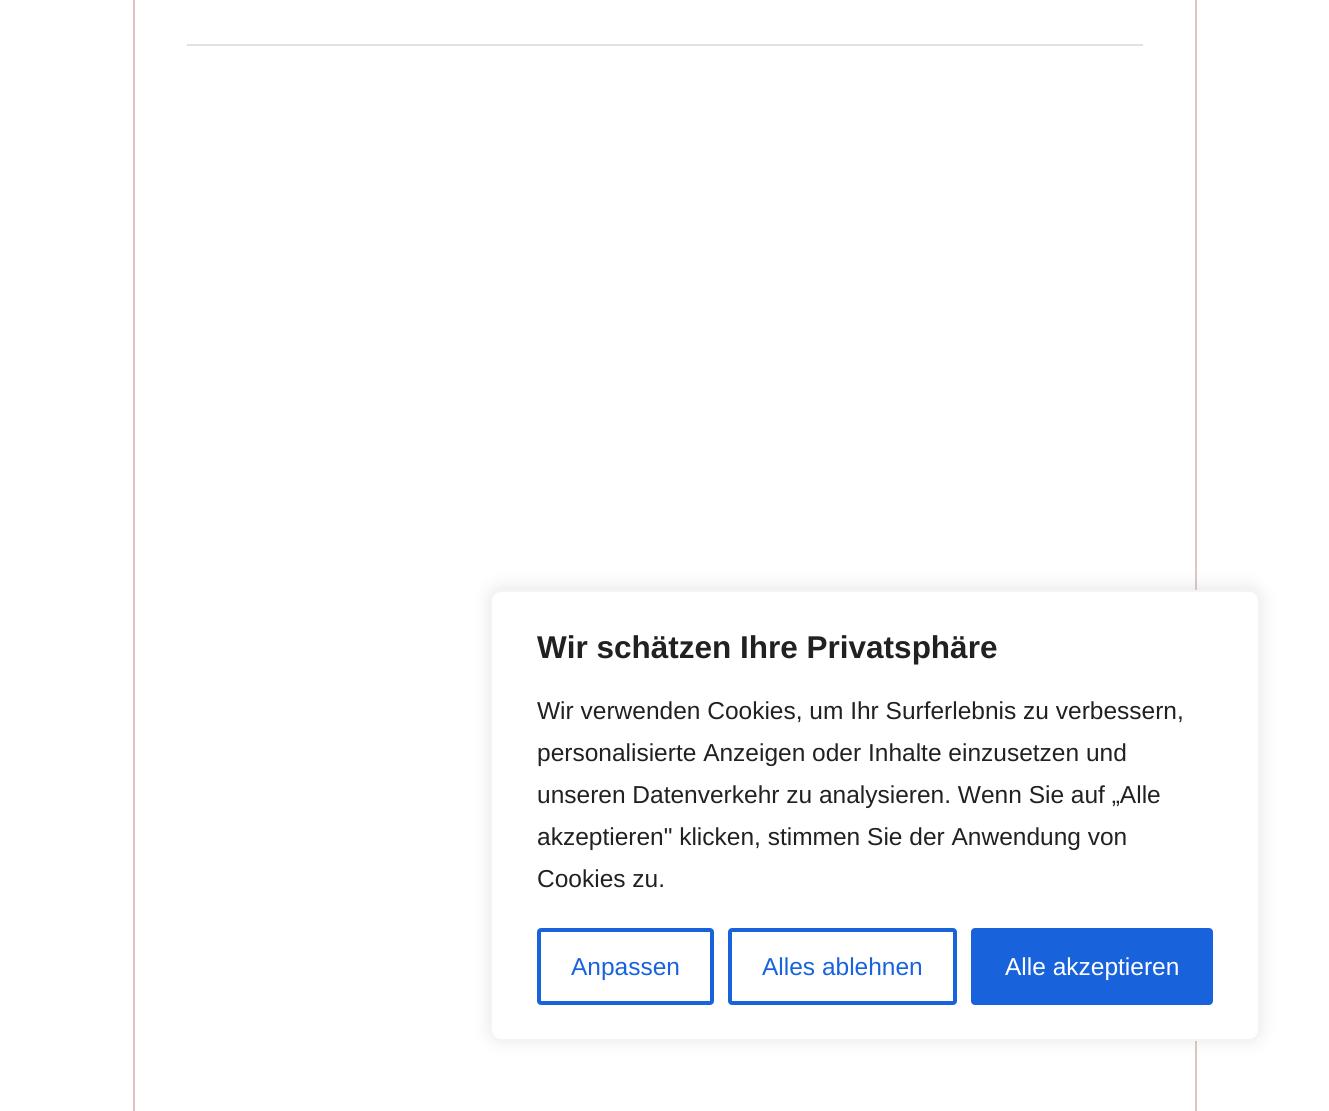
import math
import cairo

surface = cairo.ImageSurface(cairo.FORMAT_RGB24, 1329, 1111)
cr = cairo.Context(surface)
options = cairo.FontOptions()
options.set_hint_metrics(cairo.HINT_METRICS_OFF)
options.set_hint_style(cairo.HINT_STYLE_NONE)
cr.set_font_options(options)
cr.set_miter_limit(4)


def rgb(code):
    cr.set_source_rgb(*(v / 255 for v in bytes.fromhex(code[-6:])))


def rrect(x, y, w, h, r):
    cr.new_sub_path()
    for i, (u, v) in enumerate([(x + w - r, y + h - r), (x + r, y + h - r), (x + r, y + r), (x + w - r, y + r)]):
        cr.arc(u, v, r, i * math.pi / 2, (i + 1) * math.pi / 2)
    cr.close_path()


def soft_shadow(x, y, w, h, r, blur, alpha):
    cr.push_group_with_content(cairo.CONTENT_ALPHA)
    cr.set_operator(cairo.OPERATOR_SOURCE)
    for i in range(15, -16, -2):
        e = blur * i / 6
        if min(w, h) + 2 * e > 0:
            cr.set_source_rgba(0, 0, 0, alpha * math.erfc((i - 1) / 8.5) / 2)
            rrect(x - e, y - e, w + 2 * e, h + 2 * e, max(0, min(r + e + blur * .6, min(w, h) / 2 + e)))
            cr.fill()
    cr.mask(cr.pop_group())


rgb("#ffffff")
cr.paint()
rgb("#e0c4c3")
cr.set_fill_rule(cairo.FILL_RULE_EVEN_ODD)
cr.new_path()
cr.move_to(172, -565)
cr.line_to(1158, -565)
cr.curve_to(1180, -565, 1197, -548, 1197, -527)
cr.line_to(1197, 4)
cr.line_to(133, 4)
cr.line_to(133, -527)
cr.curve_to(133, -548, 150, -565, 172, -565)
cr.close_path()
cr.move_to(172, -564)
cr.line_to(1158, -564)
cr.curve_to(1179, -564, 1195, -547, 1195, -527)
cr.line_to(1195, 4)
cr.line_to(135, 4)
cr.line_to(135, -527)
cr.curve_to(135, -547, 151, -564, 172, -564)
cr.close_path()
cr.fill()
for x, y, w, h, color in [
    (1195, 4, 2, 586, "#e0c4c3"),
    (133, 4, 2, 1107, "#e0c4c3"),
    (187, 44, 956, 2, "#e2e2e2"),
    (1195, 1041, 2, 70, "#e0c4c3"),
]:
    rgb(color)
    cr.rectangle(x, y, w, h)
    cr.fill()
rgb("#acabab")
soft_shadow(490, 588, 770, 452, 11, 9, 0.3)
rgb("#ffffff")
rrect(491, 591, 768, 449, 10)
cr.fill_preserve()
rgb("#f4f4f4")
cr.stroke()
rrect(539, 930, 173, 73, 2)
rgb("#1863dc")
cr.set_line_width(4)
cr.stroke()
rrect(730, 930, 225, 73, 2)
cr.stroke()
rrect(973, 930, 238, 73, 2)
cr.fill_preserve()
cr.stroke()
cr.select_font_face("Liberation Sans", cairo.FONT_SLANT_NORMAL, cairo.FONT_WEIGHT_BOLD)
cr.set_font_size(31.5)
rgb("#212121")
cr.move_to(537, 658)
cr.show_text("Wir schätzen Ihre Privatsphäre")
cr.select_font_face("Liberation Sans")
cr.set_font_size(24.5)
for x, y, s in [
    (537, 719, "Wir verwenden Cookies, um Ihr Surferlebnis zu verbessern,"),
    (537, 761, "personalisierte Anzeigen oder Inhalte einzusetzen und"),
    (537, 803, "unseren Datenverkehr zu analysieren. Wenn Sie auf „Alle"),
    (537, 845, "akzeptieren\" klicken, stimmen Sie der Anwendung von"),
    (537, 887, "Cookies zu."),
]:
    cr.move_to(x, y)
    cr.show_text(s)
rgb("#1863dc")
cr.move_to(571, 975)
cr.show_text("Anpassen")
cr.move_to(762, 975)
cr.show_text("Alles ablehnen")
rgb("#ffffff")
cr.move_to(1005, 975)
cr.show_text("Alle akzeptieren")
surface.write_to_png("page.png")
